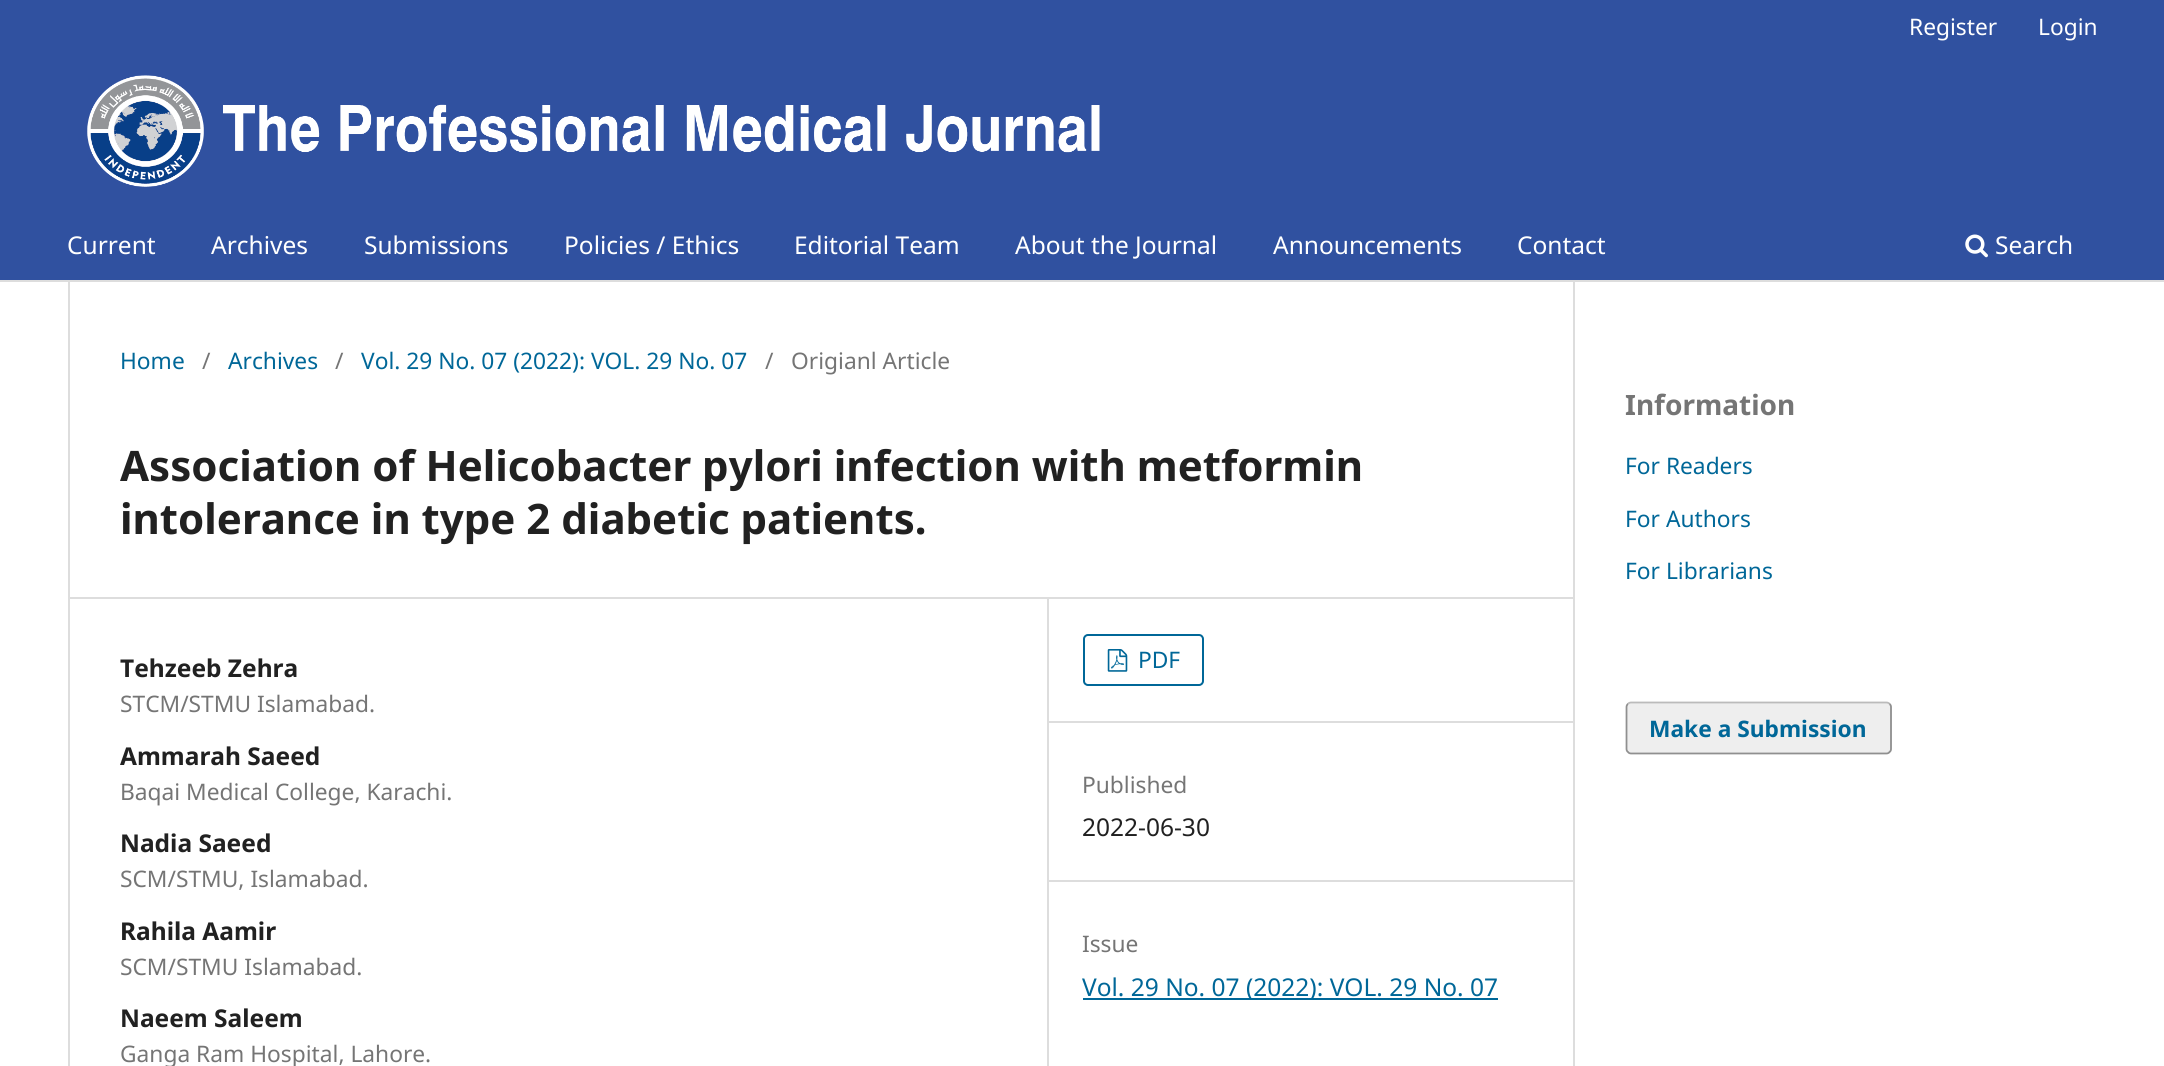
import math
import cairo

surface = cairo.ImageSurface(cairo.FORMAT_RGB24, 2164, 1066)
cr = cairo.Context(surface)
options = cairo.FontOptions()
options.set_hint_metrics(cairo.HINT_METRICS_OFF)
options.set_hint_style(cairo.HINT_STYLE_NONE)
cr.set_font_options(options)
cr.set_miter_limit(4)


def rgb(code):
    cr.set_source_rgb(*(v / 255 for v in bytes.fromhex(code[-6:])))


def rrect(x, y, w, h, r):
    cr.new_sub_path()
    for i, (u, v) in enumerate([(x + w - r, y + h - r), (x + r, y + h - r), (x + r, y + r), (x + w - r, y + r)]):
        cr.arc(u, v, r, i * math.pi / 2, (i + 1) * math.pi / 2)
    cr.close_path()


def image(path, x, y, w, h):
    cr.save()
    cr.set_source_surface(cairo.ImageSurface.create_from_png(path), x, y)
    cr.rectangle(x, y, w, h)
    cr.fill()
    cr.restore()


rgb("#ffffff")
cr.paint()
rgb("#3051a0")
cr.rectangle(0, 0, 2164, 280)
cr.fill()
rgb("#dddddd")
cr.rectangle(0, 280, 2164, 2)
cr.fill()
image("img/1.png", 1965, 234, 23, 24)
image("img/2.png", 87, 75, 1013, 112)
for x, y, w, h, color in [
    (68, 597, 1505, 2, "#dddddd"),
    (68, 282, 2, 784, "#dddddd"),
    (1047, 599, 2, 467, "#dddddd"),
    (1048, 721, 525, 2, "#dddddd"),
]:
    rgb(color)
    cr.rectangle(x, y, w, h)
    cr.fill()
rrect(1084, 635, 119, 50, 4)
rgb("#006798")
cr.stroke()
image("img/3.png", 1107, 649, 21, 23)
for x, y, w, h, color in [
    (1048, 880, 525, 2, "#dddddd"),
    (1083, 998, 415, 2, "#006798"),
    (1573, 282, 2, 784, "#dddddd"),
]:
    rgb(color)
    cr.rectangle(x, y, w, h)
    cr.fill()
rgb("#eeeeee")
rrect(1626, 702, 266, 52, 5)
cr.fill()
cr.new_path()
cr.move_to(1628, 704)
cr.curve_to(1628.5, 703, 1630, 702.5, 1631, 702.5)
cr.line_to(1886.5, 702.5)
cr.curve_to(1887.5, 702.5, 1889, 703, 1889.5, 704)
rgb("#bbbbbb")
cr.set_line_width(1.8)
cr.stroke()
cr.new_path()
cr.move_to(1889.5, 704)
cr.curve_to(1890.5, 704.5, 1891, 706, 1891, 707)
cr.line_to(1891, 749)
cr.curve_to(1891, 750, 1890.5, 751.5, 1889.5, 752)
cr.curve_to(1889, 753, 1887.5, 753.5, 1886.5, 753.5)
cr.line_to(1631, 753.5)
cr.curve_to(1630, 753.5, 1628.5, 753, 1628, 752)
cr.curve_to(1627, 751.5, 1626.5, 750, 1626.5, 749)
cr.line_to(1626.5, 707)
cr.curve_to(1626.5, 706, 1627, 704.5, 1628, 704)
cr.set_source_rgba(0, 0, 0, 0.4)
cr.stroke()
cr.select_font_face("Noto Sans")
cr.set_font_size(22.75)
rgb("#ffffff")
cr.move_to(1909, 35)
cr.show_text("Register")
cr.move_to(2038, 35)
cr.show_text("Login")
cr.set_font_size(24.5)
for x, y, s in [
    (67, 254, "Current"),
    (211, 254, "Archives"),
    (364, 254, "Submissions"),
    (564, 254, "Policies / Ethics"),
    (794, 254, "Editorial Team"),
    (1015, 254, "About the Journal"),
    (1273, 254, "Announcements"),
    (1517, 254, "Contact"),
    (1995, 254, "Search"),
]:
    cr.move_to(x, y)
    cr.show_text(s)
cr.set_font_size(22.75)
rgb("#006798")
cr.move_to(120, 369)
cr.show_text("Home")
rgb("#757575")
cr.move_to(202, 369)
cr.show_text("/")
rgb("#006798")
cr.move_to(228, 369)
cr.show_text("Archives")
rgb("#757575")
cr.move_to(335, 369)
cr.show_text("/")
rgb("#006798")
cr.move_to(361, 369)
cr.show_text("Vol. 29 No. 07 (2022): VOL. 29 No. 07")
rgb("#757575")
cr.move_to(765, 369)
cr.show_text("/")
cr.move_to(791, 369)
cr.show_text("Origianl Article")
cr.select_font_face("Noto Sans", cairo.FONT_SLANT_NORMAL, cairo.FONT_WEIGHT_BOLD)
cr.set_font_size(42)
rgb("#212121")
cr.move_to(120, 481)
cr.show_text("Association of Helicobacter pylori infection with metformin")
cr.move_to(120, 534)
cr.show_text("intolerance in type 2 diabetic patients.")
cr.set_font_size(24.5)
cr.move_to(120, 677)
cr.show_text("Tehzeeb Zehra")
cr.select_font_face("Noto Sans")
cr.set_font_size(22.75)
rgb("#757575")
cr.move_to(120, 712)
cr.show_text("STCM/STMU Islamabad.")
cr.select_font_face("Noto Sans", cairo.FONT_SLANT_NORMAL, cairo.FONT_WEIGHT_BOLD)
cr.set_font_size(24.5)
rgb("#212121")
cr.move_to(120, 765)
cr.show_text("Ammarah Saeed")
cr.select_font_face("Noto Sans")
cr.set_font_size(22.75)
rgb("#757575")
cr.move_to(120, 800)
cr.show_text("Baqai Medical College, Karachi.")
cr.select_font_face("Noto Sans", cairo.FONT_SLANT_NORMAL, cairo.FONT_WEIGHT_BOLD)
cr.set_font_size(24.5)
rgb("#212121")
cr.move_to(120, 852)
cr.show_text("Nadia Saeed")
cr.select_font_face("Noto Sans")
cr.set_font_size(22.75)
rgb("#757575")
cr.move_to(120, 887)
cr.show_text("SCM/STMU, Islamabad.")
cr.select_font_face("Noto Sans", cairo.FONT_SLANT_NORMAL, cairo.FONT_WEIGHT_BOLD)
cr.set_font_size(24.5)
rgb("#212121")
cr.move_to(120, 940)
cr.show_text("Rahila Aamir")
cr.select_font_face("Noto Sans")
cr.set_font_size(22.75)
rgb("#757575")
cr.move_to(120, 975)
cr.show_text("SCM/STMU Islamabad.")
cr.select_font_face("Noto Sans", cairo.FONT_SLANT_NORMAL, cairo.FONT_WEIGHT_BOLD)
cr.set_font_size(24.5)
rgb("#212121")
cr.move_to(120, 1027)
cr.show_text("Naeem Saleem")
cr.select_font_face("Noto Sans")
cr.set_font_size(22.75)
rgb("#757575")
cr.move_to(120, 1062)
cr.show_text("Ganga Ram Hospital, Lahore.")
rgb("#006798")
cr.move_to(1138, 668)
cr.show_text("PDF")
rgb("#757575")
cr.move_to(1082, 793)
cr.show_text("Published")
cr.set_font_size(24.5)
rgb("#212121")
cr.move_to(1082, 836)
cr.show_text("2022-06-30")
cr.set_font_size(22.75)
rgb("#757575")
cr.move_to(1082, 952)
cr.show_text("Issue")
cr.set_font_size(24.5)
rgb("#006798")
cr.move_to(1082, 996)
cr.show_text("Vol. 29 No. 07 (2022): VOL. 29 No. 07")
cr.select_font_face("Noto Sans", cairo.FONT_SLANT_NORMAL, cairo.FONT_WEIGHT_BOLD)
cr.set_font_size(28)
rgb("#757575")
cr.move_to(1625, 415)
cr.show_text("Information")
cr.select_font_face("Noto Sans")
cr.set_font_size(22.75)
rgb("#006798")
for x, y, s in [
    (1625, 474, "For Readers"),
    (1625, 527, "For Authors"),
    (1625, 579, "For Librarians"),
]:
    cr.move_to(x, y)
    cr.show_text(s)
cr.select_font_face("Noto Sans", cairo.FONT_SLANT_NORMAL, cairo.FONT_WEIGHT_BOLD)
cr.move_to(1649, 737)
cr.show_text("Make a Submission")
surface.write_to_png("page.png")
